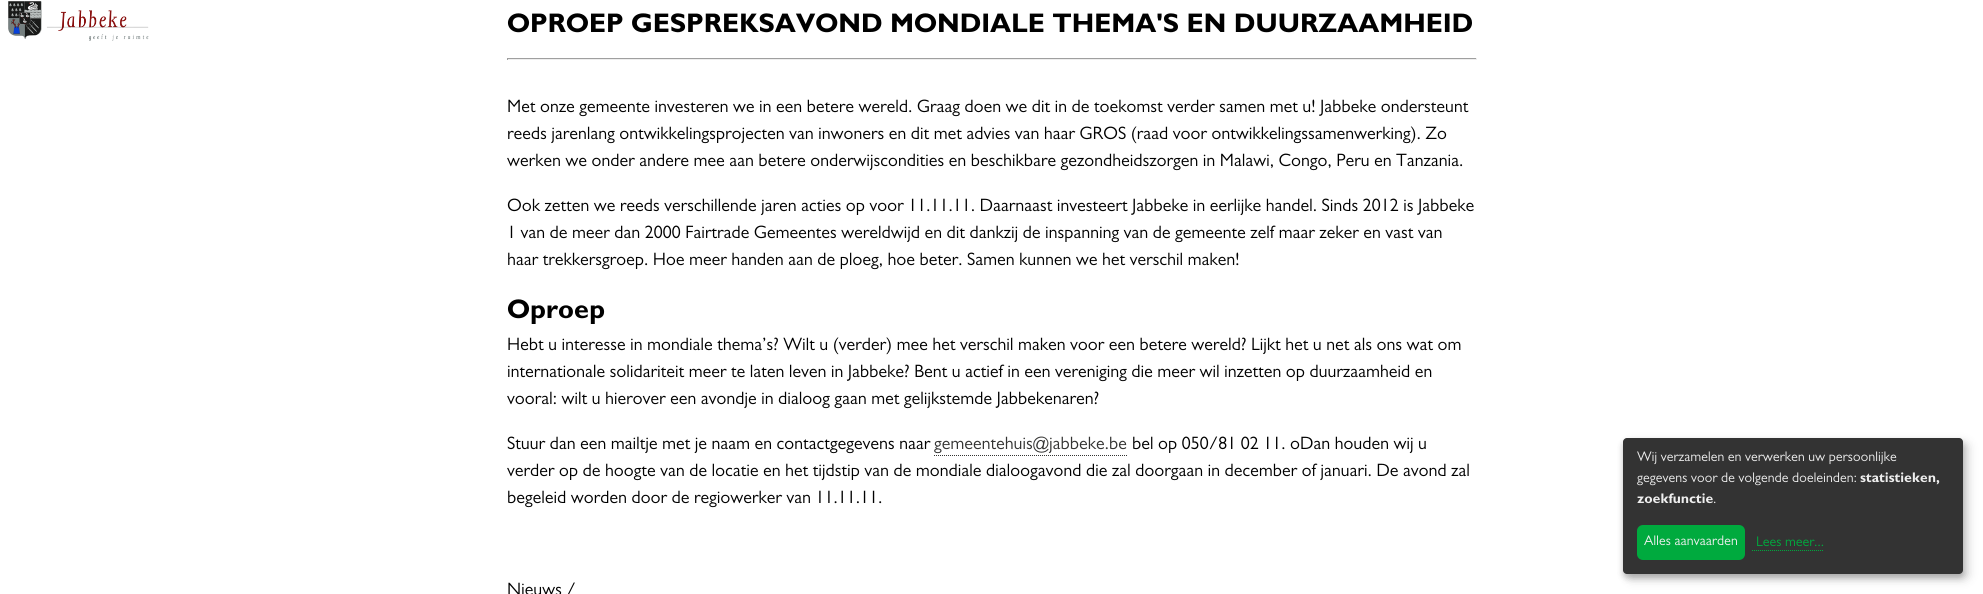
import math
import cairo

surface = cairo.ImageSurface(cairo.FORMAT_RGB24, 1983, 594)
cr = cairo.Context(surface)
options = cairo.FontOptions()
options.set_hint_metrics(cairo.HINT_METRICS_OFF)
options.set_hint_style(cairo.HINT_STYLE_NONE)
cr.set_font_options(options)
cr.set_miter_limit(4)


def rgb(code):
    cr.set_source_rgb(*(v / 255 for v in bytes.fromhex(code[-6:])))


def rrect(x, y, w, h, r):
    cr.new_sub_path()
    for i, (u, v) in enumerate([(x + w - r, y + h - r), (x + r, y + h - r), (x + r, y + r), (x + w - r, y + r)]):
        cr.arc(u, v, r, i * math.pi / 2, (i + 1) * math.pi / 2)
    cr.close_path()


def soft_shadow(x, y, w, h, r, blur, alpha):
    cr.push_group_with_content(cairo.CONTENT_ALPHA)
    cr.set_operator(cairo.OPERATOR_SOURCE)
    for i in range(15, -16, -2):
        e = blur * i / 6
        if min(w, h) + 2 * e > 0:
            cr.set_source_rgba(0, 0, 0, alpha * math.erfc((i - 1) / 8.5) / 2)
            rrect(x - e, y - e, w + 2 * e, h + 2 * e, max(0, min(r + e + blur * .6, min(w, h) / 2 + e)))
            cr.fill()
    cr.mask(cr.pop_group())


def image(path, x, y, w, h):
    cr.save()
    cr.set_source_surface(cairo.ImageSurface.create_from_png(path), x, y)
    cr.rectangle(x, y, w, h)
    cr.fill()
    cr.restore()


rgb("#ffffff")
cr.paint()
image("img/1.png", 8, 1, 141, 40)
image("img/2.png", 507, 13, 965, 20)
for x, y, w, h, color in [
    (507, 58, 970, 1, "#9f9f9f"),
    (1476, 58, 1, 2, "#eeeeee"),
    (507, 59, 970, 1, "#eeeeee"),
    (507, 58, 1, 2, "#9f9f9f"),
]:
    rgb(color)
    cr.rectangle(x, y, w, h)
    cr.fill()
image("img/3.png", 508, 99, 961, 18)
image("img/4.png", 508, 126, 939, 18)
image("img/5.png", 507, 153, 956, 18)
image("img/6.png", 507, 198, 967, 18)
image("img/7.png", 510, 225, 932, 18)
image("img/8.png", 508, 252, 731, 18)
image("img/9.png", 507, 299, 98, 25)
image("img/10.png", 508, 337, 953, 18)
image("img/11.png", 508, 364, 924, 18)
image("img/12.png", 507, 391, 592, 18)
image("img/13.png", 507, 436, 424, 18)
image("img/14.png", 934, 436, 193, 18)
image("img/15.png", 1133, 436, 293, 18)
cr.new_path()
cr.move_to(934, 455.5)
cr.line_to(1127, 455.5)
rgb("#333332")
cr.set_line_width(1)
cr.set_dash([1, 1])
cr.stroke()
image("img/16.png", 507, 463, 962, 18)
image("img/17.png", 508, 490, 374, 18)
image("img/18.png", 508, 582, 67, 12)
rgb("#000000")
soft_shadow(1628, 443, 340, 136, 4, 5, 0.19)
soft_shadow(1623, 442, 340, 136, 4, 3, 0.2)
rgb("#333333")
rrect(1623, 438, 340, 136, 4)
cr.fill()
image("img/19.png", 1637, 451, 260, 14)
image("img/20.png", 1637, 472, 219, 14)
image("img/21.png", 1860, 472, 80, 13)
image("img/22.png", 1637, 493, 76, 11)
image("img/23.png", 1714, 501, 2, 3)
rgb("#00aa3e")
rrect(1637, 525, 108, 35, 6)
cr.fill()
image("img/24.png", 1644, 535, 93, 11)
image("img/25.png", 1757, 536, 58, 11)
image("img/26.png", 1815, 544, 9, 3)
cr.new_path()
cr.move_to(1752, 550.5)
cr.line_to(1814, 550.5)
cr.stroke()
cr.new_path()
cr.move_to(1814, 550.5)
cr.line_to(1824, 550.5)
cr.stroke()
surface.write_to_png("page.png")
